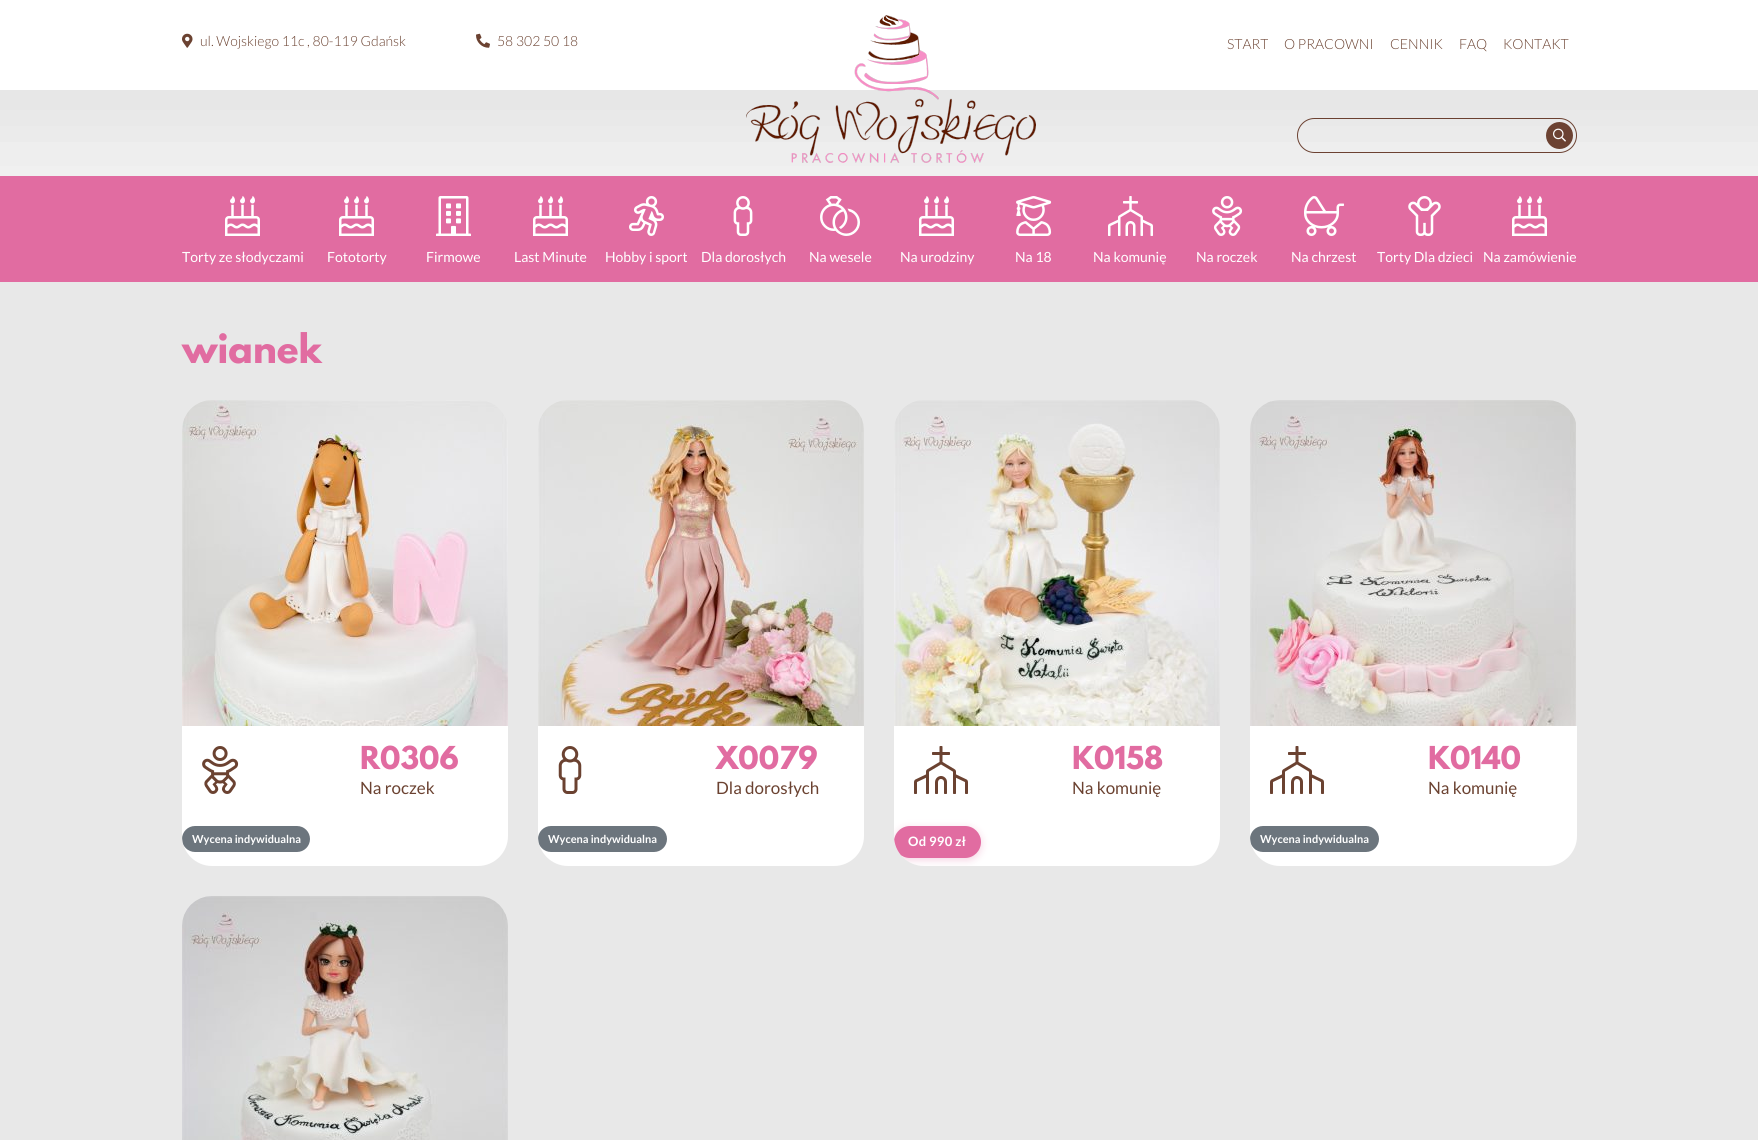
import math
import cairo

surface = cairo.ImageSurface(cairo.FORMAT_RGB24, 1758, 1140)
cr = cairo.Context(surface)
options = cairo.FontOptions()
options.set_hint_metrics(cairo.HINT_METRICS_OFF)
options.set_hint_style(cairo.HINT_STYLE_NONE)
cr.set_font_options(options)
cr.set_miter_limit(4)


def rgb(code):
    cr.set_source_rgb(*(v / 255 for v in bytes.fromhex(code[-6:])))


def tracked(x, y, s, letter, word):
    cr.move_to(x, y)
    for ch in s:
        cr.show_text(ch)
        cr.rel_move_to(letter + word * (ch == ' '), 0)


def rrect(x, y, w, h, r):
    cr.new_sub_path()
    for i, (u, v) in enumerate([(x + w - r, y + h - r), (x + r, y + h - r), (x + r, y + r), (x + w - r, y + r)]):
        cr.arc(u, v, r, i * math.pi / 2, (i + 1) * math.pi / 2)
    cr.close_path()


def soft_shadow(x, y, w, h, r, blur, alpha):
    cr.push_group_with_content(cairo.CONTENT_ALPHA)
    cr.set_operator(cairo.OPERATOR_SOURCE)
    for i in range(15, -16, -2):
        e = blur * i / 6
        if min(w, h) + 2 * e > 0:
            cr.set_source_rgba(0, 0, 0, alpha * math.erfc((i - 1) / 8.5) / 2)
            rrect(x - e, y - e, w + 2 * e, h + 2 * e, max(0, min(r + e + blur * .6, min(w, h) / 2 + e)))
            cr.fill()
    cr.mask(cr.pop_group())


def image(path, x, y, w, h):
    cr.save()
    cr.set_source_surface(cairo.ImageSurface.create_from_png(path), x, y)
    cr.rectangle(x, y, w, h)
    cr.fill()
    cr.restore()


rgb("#ffffff")
cr.paint()
image("img/1.png", 0, 90, 1758, 86)
image("img/2.png", 182, 33, 11, 15)
image("img/3.png", 476, 33, 14, 15)
image("img/4.png", 746, 15, 290, 148)
rrect(1297.5, 118.5, 279, 34, 17)
rgb("#6c4232")
cr.set_line_width(1)
cr.stroke()
cr.arc(1559.5, 135.5, 13.5, 0, 2 * math.pi)
cr.fill()
image("img/5.png", 1553, 128, 13, 14)
rgb("#e16ca1")
cr.rectangle(0, 176, 1758, 106)
cr.fill()
image("img/6.png", 225, 196, 35, 40)
image("img/6.png", 339, 196, 35, 40)
image("img/7.png", 436, 196, 35, 40)
image("img/6.png", 533, 196, 35, 40)
image("img/8.png", 629, 196, 35, 40)
image("img/9.png", 733, 196, 20, 40)
image("img/10.png", 820, 196, 40, 40)
image("img/6.png", 919, 196, 35, 40)
image("img/11.png", 1016, 196, 36, 40)
image("img/12.png", 1108, 196, 45, 40)
image("img/13.png", 1212, 196, 31, 40)
image("img/14.png", 1304, 196, 40, 40)
image("img/15.png", 1408, 196, 33, 40)
image("img/6.png", 1512, 196, 35, 40)
rgb("#e8e8e8")
cr.rectangle(0, 282, 1758, 858)
cr.fill()
image("img/16.png", 182, 400, 326, 326)
rgb("#ffffff")
cr.new_path()
cr.move_to(182, 726)
cr.line_to(508, 726)
cr.line_to(508, 836)
cr.curve_to(508, 852.5, 494.5, 866, 478, 866)
cr.line_to(212, 866)
cr.curve_to(195.5, 866, 182, 852.5, 182, 836)
cr.close_path()
cr.fill()
image("img/17.png", 202, 746, 37, 48)
cr.save()
rrect(182, 400, 326, 466, 30)
cr.clip()
rgb("#6c757d")
rrect(182, 826, 128, 26, 13)
cr.fill()
cr.restore()
image("img/18.png", 538, 400, 326, 326)
cr.new_path()
cr.move_to(538, 726)
cr.line_to(864, 726)
cr.line_to(864, 836)
cr.curve_to(864, 852.5, 850.5, 866, 834, 866)
cr.line_to(568, 866)
cr.curve_to(551.5, 866, 538, 852.5, 538, 836)
cr.close_path()
cr.fill()
image("img/19.png", 558, 746, 24, 48)
cr.save()
rrect(538, 400, 326, 466, 30)
cr.clip()
rgb("#6c757d")
rrect(538, 826, 129, 26, 13)
cr.fill()
cr.restore()
image("img/20.png", 894, 400, 326, 326)
cr.new_path()
cr.move_to(894, 726)
cr.line_to(1220, 726)
cr.line_to(1220, 836)
cr.curve_to(1220, 852.5, 1206.5, 866, 1190, 866)
cr.line_to(924, 866)
cr.curve_to(907.5, 866, 894, 852.5, 894, 836)
cr.close_path()
cr.fill()
image("img/21.png", 914, 746, 54, 48)
cr.save()
rrect(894, 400, 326, 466, 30)
cr.clip()
rgb("#e16ca1")
soft_shadow(894, 828, 87, 32, 16, 4, 0.3)
cr.restore()
cr.save()
rrect(894, 400, 326, 466, 30)
cr.clip()
rgb("#e16ca1")
rrect(894, 826, 87, 32, 16)
cr.fill()
cr.restore()
image("img/22.png", 1250, 400, 326, 326)
cr.new_path()
cr.move_to(1250, 726)
cr.line_to(1577, 726)
cr.line_to(1577, 836)
cr.curve_to(1577, 852.5, 1563.5, 866, 1547, 866)
cr.line_to(1280, 866)
cr.curve_to(1263.5, 866, 1250, 852.5, 1250, 836)
cr.close_path()
cr.fill()
image("img/21.png", 1270, 746, 54, 48)
cr.save()
rrect(1250, 400, 327, 466, 30)
cr.clip()
rgb("#6c757d")
rrect(1250, 826, 129, 26, 13)
cr.fill()
cr.restore()
image("img/23.png", 182, 896, 326, 244)
cr.select_font_face("Lato Light")
cr.set_font_size(14)
rgb("#6b4231")
for x, y, s in [
    (200, 46, "ul. Wojskiego 11c , 80-119 Gdańsk"),
    (497, 46, "58 302 50 18"),
    (1227, 49, "START"),
    (1284, 49, "O PRACOWNI"),
    (1390, 49, "CENNIK"),
    (1459, 49, "FAQ"),
    (1503, 49, "KONTAKT"),
]:
    cr.move_to(x, y)
    cr.show_text(s)
cr.select_font_face("Lato")
rgb("#ffffff")
for x, y, s in [
    (182, 262, "Torty ze słodyczami"),
    (327, 262, "Fototorty"),
    (426, 262, "Firmowe"),
    (514, 262, "Last Minute"),
    (605, 262, "Hobby i sport"),
    (701, 262, "Dla dorosłych"),
    (809, 262, "Na wesele"),
    (900, 262, "Na urodziny"),
    (1015, 262, "Na 18"),
    (1093, 262, "Na komunię"),
    (1196, 262, "Na roczek"),
    (1291, 262, "Na chrzest"),
    (1377, 262, "Torty Dla dzieci"),
    (1483, 262, "Na zamówienie"),
]:
    cr.move_to(x, y)
    cr.show_text(s)
cr.select_font_face("League Spartan", cairo.FONT_SLANT_NORMAL, cairo.FONT_WEIGHT_BOLD)
cr.set_font_size(36)
rgb("#e16ca1")
cr.move_to(182, 363)
cr.show_text("wianek")
cr.set_font_size(28)
cr.move_to(360, 769)
cr.show_text("R0306")
cr.select_font_face("Lato")
cr.set_font_size(17)
rgb("#6b4231")
cr.move_to(360, 794)
cr.show_text("Na roczek")
cr.select_font_face("Lato", cairo.FONT_SLANT_NORMAL, cairo.FONT_WEIGHT_BOLD)
cr.set_font_size(11)
rgb("#ffffff")
cr.move_to(192, 843)
cr.show_text("Wycena indywidualna")
cr.select_font_face("League Spartan", cairo.FONT_SLANT_NORMAL, cairo.FONT_WEIGHT_BOLD)
cr.set_font_size(28)
rgb("#e16ca1")
cr.move_to(716, 769)
cr.show_text("X0079")
cr.select_font_face("Lato")
cr.set_font_size(17)
rgb("#6b4231")
cr.move_to(716, 794)
cr.show_text("Dla dorosłych")
cr.select_font_face("Lato", cairo.FONT_SLANT_NORMAL, cairo.FONT_WEIGHT_BOLD)
cr.set_font_size(11)
rgb("#ffffff")
cr.move_to(548, 843)
cr.show_text("Wycena indywidualna")
cr.select_font_face("League Spartan", cairo.FONT_SLANT_NORMAL, cairo.FONT_WEIGHT_BOLD)
cr.set_font_size(28)
rgb("#e16ca1")
cr.move_to(1072, 769)
cr.show_text("K0158")
cr.select_font_face("Lato")
cr.set_font_size(17)
rgb("#6b4231")
cr.move_to(1072, 794)
cr.show_text("Na komunię")
cr.select_font_face("Lato", cairo.FONT_SLANT_NORMAL, cairo.FONT_WEIGHT_BOLD)
cr.set_font_size(13)
rgb("#ffffff")
tracked(908, 846, "Od 990 zł", 0.25, 0)
cr.select_font_face("League Spartan", cairo.FONT_SLANT_NORMAL, cairo.FONT_WEIGHT_BOLD)
cr.set_font_size(28)
rgb("#e16ca1")
cr.move_to(1428, 769)
cr.show_text("K0140")
cr.select_font_face("Lato")
cr.set_font_size(17)
rgb("#6b4231")
cr.move_to(1428, 794)
cr.show_text("Na komunię")
cr.select_font_face("Lato", cairo.FONT_SLANT_NORMAL, cairo.FONT_WEIGHT_BOLD)
cr.set_font_size(11)
rgb("#ffffff")
cr.move_to(1260, 843)
cr.show_text("Wycena indywidualna")
surface.write_to_png("page.png")
